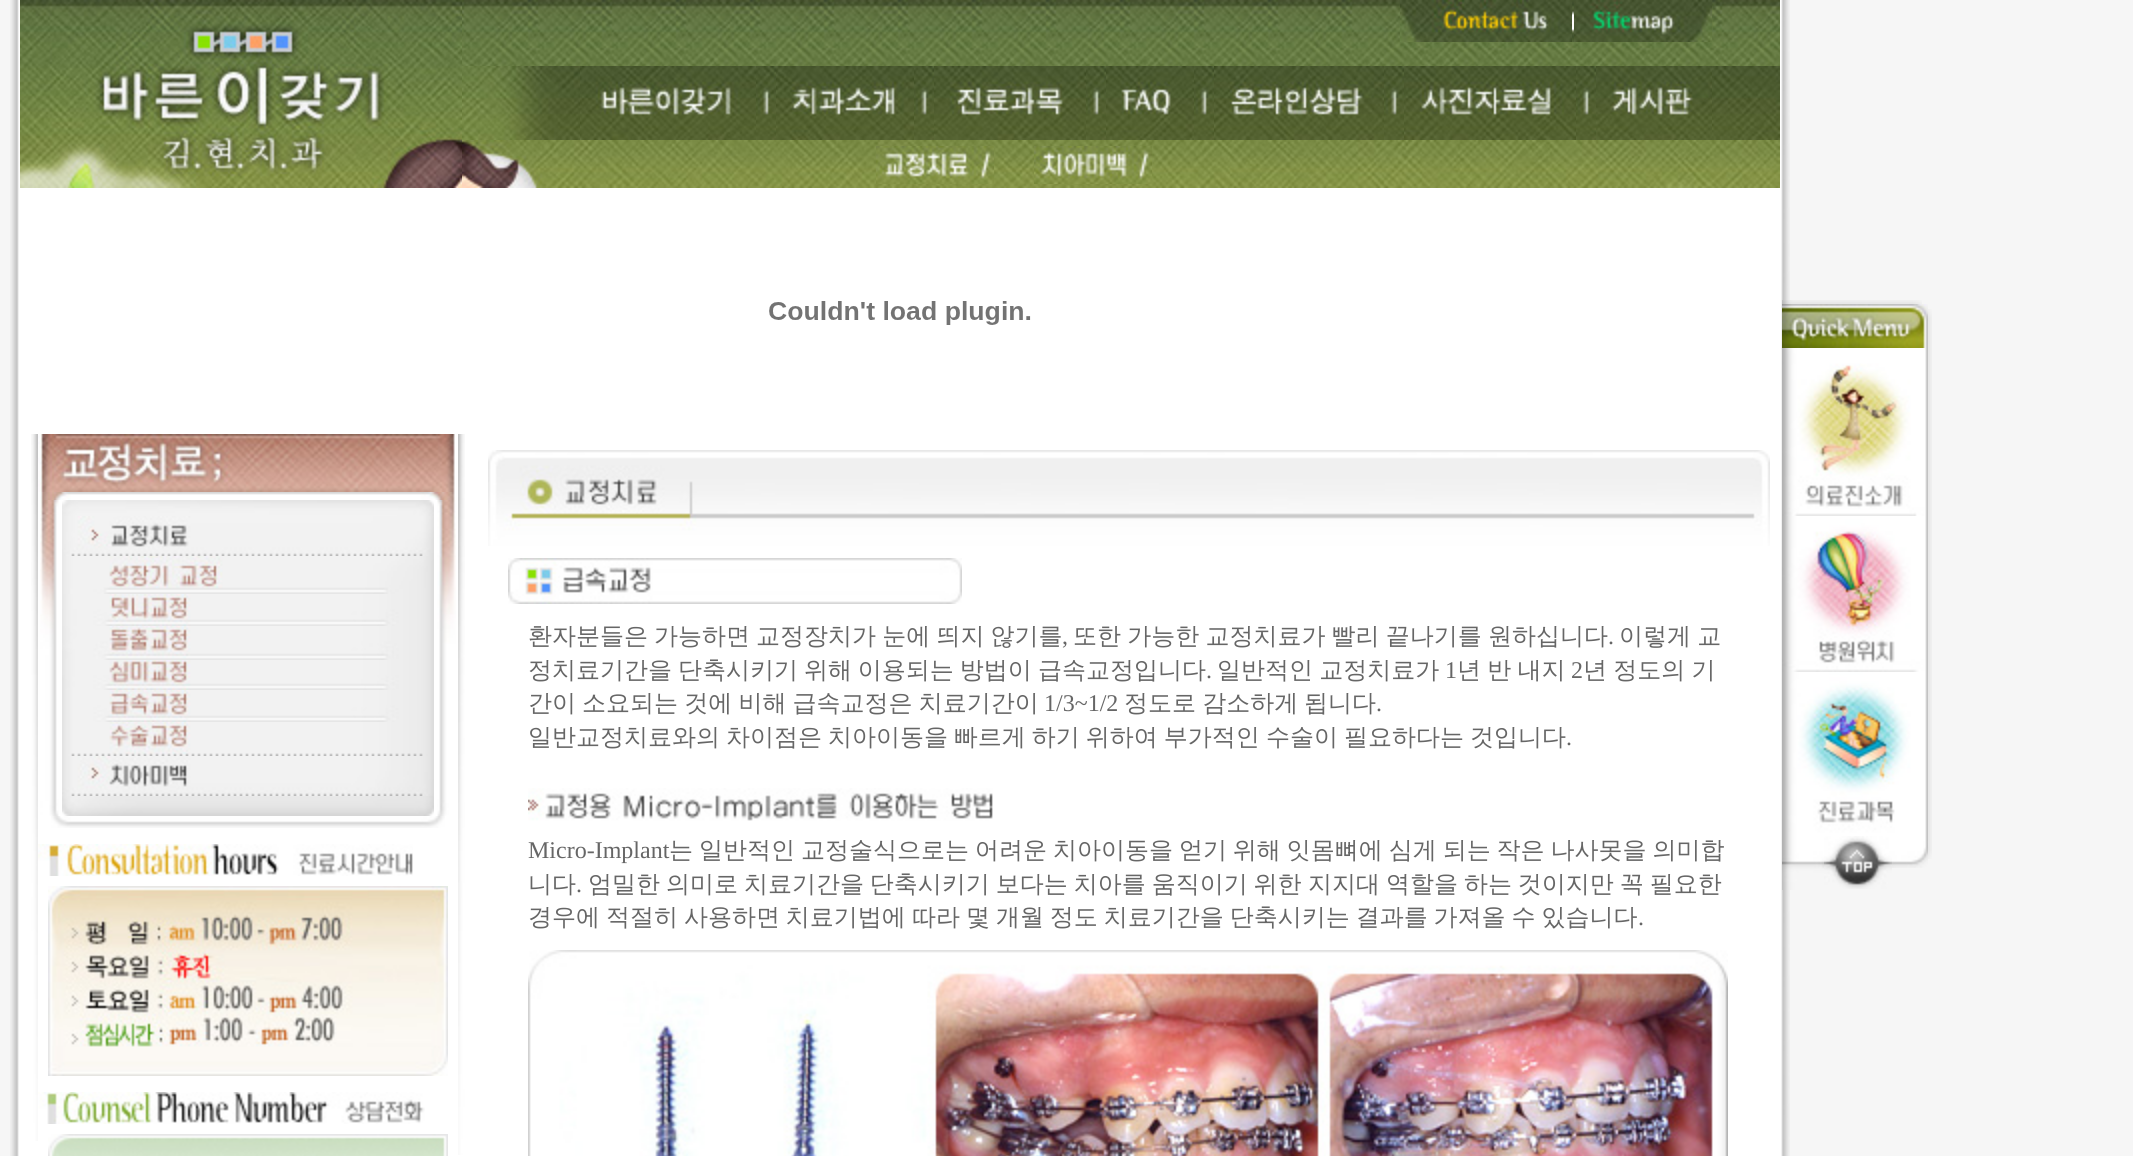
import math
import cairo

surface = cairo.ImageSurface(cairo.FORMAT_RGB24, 2133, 1156)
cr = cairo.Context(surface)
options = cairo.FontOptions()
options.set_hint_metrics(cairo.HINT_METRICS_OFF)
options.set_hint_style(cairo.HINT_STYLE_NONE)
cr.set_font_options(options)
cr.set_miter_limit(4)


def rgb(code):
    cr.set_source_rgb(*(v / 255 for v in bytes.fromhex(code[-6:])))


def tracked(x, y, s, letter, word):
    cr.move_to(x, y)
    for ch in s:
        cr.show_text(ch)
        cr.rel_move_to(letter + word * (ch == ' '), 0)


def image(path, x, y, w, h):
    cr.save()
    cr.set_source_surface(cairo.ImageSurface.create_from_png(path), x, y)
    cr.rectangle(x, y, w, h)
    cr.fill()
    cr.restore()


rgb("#f6f6f6")
cr.paint()
image("img/28.png", 462, 140, 1318, 48)
image("img/1.png", 876, 146, 118, 38)
image("img/2.png", 1034, 146, 118, 38)
image("img/55.png", 1780, 0, 10, 1156)
image("img/3.png", 1782, 300, 140, 4)
image("img/4.png", 1782, 304, 146, 44)
image("img/5.png", 1928, 309, 4, 550)
image("img/6.png", 1782, 348, 146, 168)
image("img/7.png", 1782, 516, 146, 156)
image("img/8.png", 1782, 672, 146, 164)
image("img/9.png", 1782, 836, 42, 54)
image("img/10.png", 1824, 836, 68, 53)
image("img/11.png", 1892, 836, 36, 32)
image("img/12.png", 10, 0, 10, 1156)
rgb("#ffffff")
cr.rectangle(20, 188, 1760, 968)
cr.fill()
image("img/13.png", 462, 0, 1318, 66)
image("img/14.png", 20, 0, 442, 188)
image("img/15.png", 1400, 0, 172, 42)
image("img/16.png", 1572, 0, 2, 42)
image("img/17.png", 1574, 0, 138, 42)
image("img/18.png", 462, 66, 118, 74)
image("img/19.png", 580, 66, 176, 74)
image("img/20.png", 756, 66, 20, 74)
image("img/21.png", 776, 66, 138, 74)
image("img/20.png", 914, 66, 20, 74)
image("img/22.png", 934, 66, 152, 74)
image("img/20.png", 1086, 66, 20, 74)
image("img/23.png", 1106, 66, 88, 74)
image("img/20.png", 1194, 66, 20, 74)
image("img/24.png", 1214, 66, 170, 74)
image("img/20.png", 1384, 66, 20, 74)
image("img/25.png", 1404, 66, 172, 74)
image("img/20.png", 1576, 66, 20, 74)
image("img/26.png", 1596, 66, 116, 74)
image("img/27.png", 1712, 66, 68, 74)
image("img/29.png", 769, 301, 262, 24)
image("img/30.png", 31, 434, 7, 707)
image("img/31.png", 38, 434, 417, 58)
image("img/32.png", 40, 492, 415, 8)
image("img/33.png", 40, 500, 19, 316)
image("img/34.png", 62, 500, 372, 16)
image("img/35.png", 437, 500, 19, 316)
image("img/36.png", 62, 516, 372, 40)
image("img/37.png", 62, 556, 372, 38)
image("img/38.png", 62, 594, 372, 32)
image("img/39.png", 62, 626, 372, 34)
image("img/40.png", 62, 660, 372, 30)
image("img/41.png", 62, 690, 372, 32)
image("img/42.png", 62, 722, 372, 34)
image("img/43.png", 62, 756, 372, 40)
image("img/44.png", 62, 796, 372, 20)
image("img/45.png", 51, 816, 394, 12)
image("img/46.png", 38, 844, 375, 32)
image("img/47.png", 48, 886, 400, 190)
image("img/48.png", 38, 1092, 387, 32)
image("img/49.png", 48, 1134, 400, 22)
image("img/50.png", 458, 434, 7, 721)
image("img/51.png", 488, 450, 1282, 96)
image("img/52.png", 508, 558, 454, 46)
image("img/53.png", 528, 788, 465, 33)
image("img/54.png", 528, 950, 1200, 206)
cr.select_font_face("WenQuanYi Zen Hei Medium")
cr.set_font_size(24)
rgb("#666666")
tracked(528, 644, "환자분들은 가능하면", 0, -1.25)
tracked(756, 644, "교정장치가 눈에 띄지 않기를", 0, -1)
cr.select_font_face("Liberation Serif")
cr.move_to(1062, 644)
cr.show_text(",")
cr.select_font_face("WenQuanYi Zen Hei Medium")
tracked(1073, 644, "또한 가능한 교정치료가 빨리 끝나기를", 0, -1)
cr.move_to(1488, 644)
cr.show_text("원하십니다")
cr.select_font_face("Liberation Serif")
cr.move_to(1608, 644)
cr.show_text(".")
cr.select_font_face("WenQuanYi Zen Hei Medium")
tracked(1619, 644, "이렇게 교", 0, -1)
tracked(528, 678, "정치료기간을 단축시키기 위해 이용되는 방법이", 0, -1.25)
cr.move_to(1038, 678)
cr.show_text("급속교정입니다")
cr.select_font_face("Liberation Serif")
cr.move_to(1206, 678)
cr.show_text(".")
cr.select_font_face("WenQuanYi Zen Hei Medium")
tracked(1217, 678, "일반적인 교정치료가", 0, -1)
cr.select_font_face("Liberation Serif")
cr.move_to(1445, 678)
cr.show_text("1")
cr.select_font_face("WenQuanYi Zen Hei Medium")
tracked(1457, 678, "년 반 내지", 0, -1)
cr.select_font_face("Liberation Serif")
cr.move_to(1571, 678)
cr.show_text("2")
cr.select_font_face("WenQuanYi Zen Hei Medium")
tracked(1583, 678, "년 정도의 기", 0, -1)
cr.move_to(528, 711)
cr.show_text("간이")
tracked(582, 711, "소요되는 것에 비해 급속교정은 치료기간이", 0, -1)
cr.select_font_face("Liberation Serif")
cr.move_to(1044, 711)
cr.show_text("1/3~1/2")
cr.select_font_face("WenQuanYi Zen Hei Medium")
tracked(1124, 711, "정도로 감소하게", 0, -1)
cr.move_to(1304, 711)
cr.show_text("됩니다")
cr.select_font_face("Liberation Serif")
cr.move_to(1376, 711)
cr.show_text(".")
cr.select_font_face("WenQuanYi Zen Hei Medium")
tracked(528, 745, "일반교정치료와의 차이점은 치아이동을 빠르게 하기 위하여 부가적인", 0, -1.25)
tracked(1266, 745, "수술이 필요하다는 것입니다", 0, -1.25)
cr.select_font_face("Liberation Serif")
cr.move_to(1566, 745)
cr.show_text(".")
cr.move_to(528, 858)
cr.show_text("Micro-Implant")
cr.select_font_face("WenQuanYi Zen Hei Medium")
tracked(669, 858, "는 일반적인 교정술식으로는", 0, -1.25)
tracked(975, 858, "어려운 치아이동을 얻기 위해 잇몸뼈에 심게 되는 작은 나사못을 의미합", 0, -1.25)
cr.move_to(528, 892)
cr.show_text("니다")
cr.select_font_face("Liberation Serif")
cr.move_to(576, 892)
cr.show_text(".")
cr.select_font_face("WenQuanYi Zen Hei Medium")
for x, y, s in [
    (588, 892, "엄밀한 의미로 치료기간을 단축시키기 보다는 치아를 움직이기 위한"),
    (1308, 892, "지지대 역할을 하는 것이지만 꼭 필요한"),
    (528, 925, "경우에 적절히 사용하면 치료기법에"),
    (912, 925, "따라 몇 개월 정도 치료기간을 단축시키는 결과를 가져올 수 있습니다"),
]:
    tracked(x, y, s, 0, -1.25)
cr.select_font_face("Liberation Serif")
cr.move_to(1638, 925)
cr.show_text(".")
surface.write_to_png("page.png")
